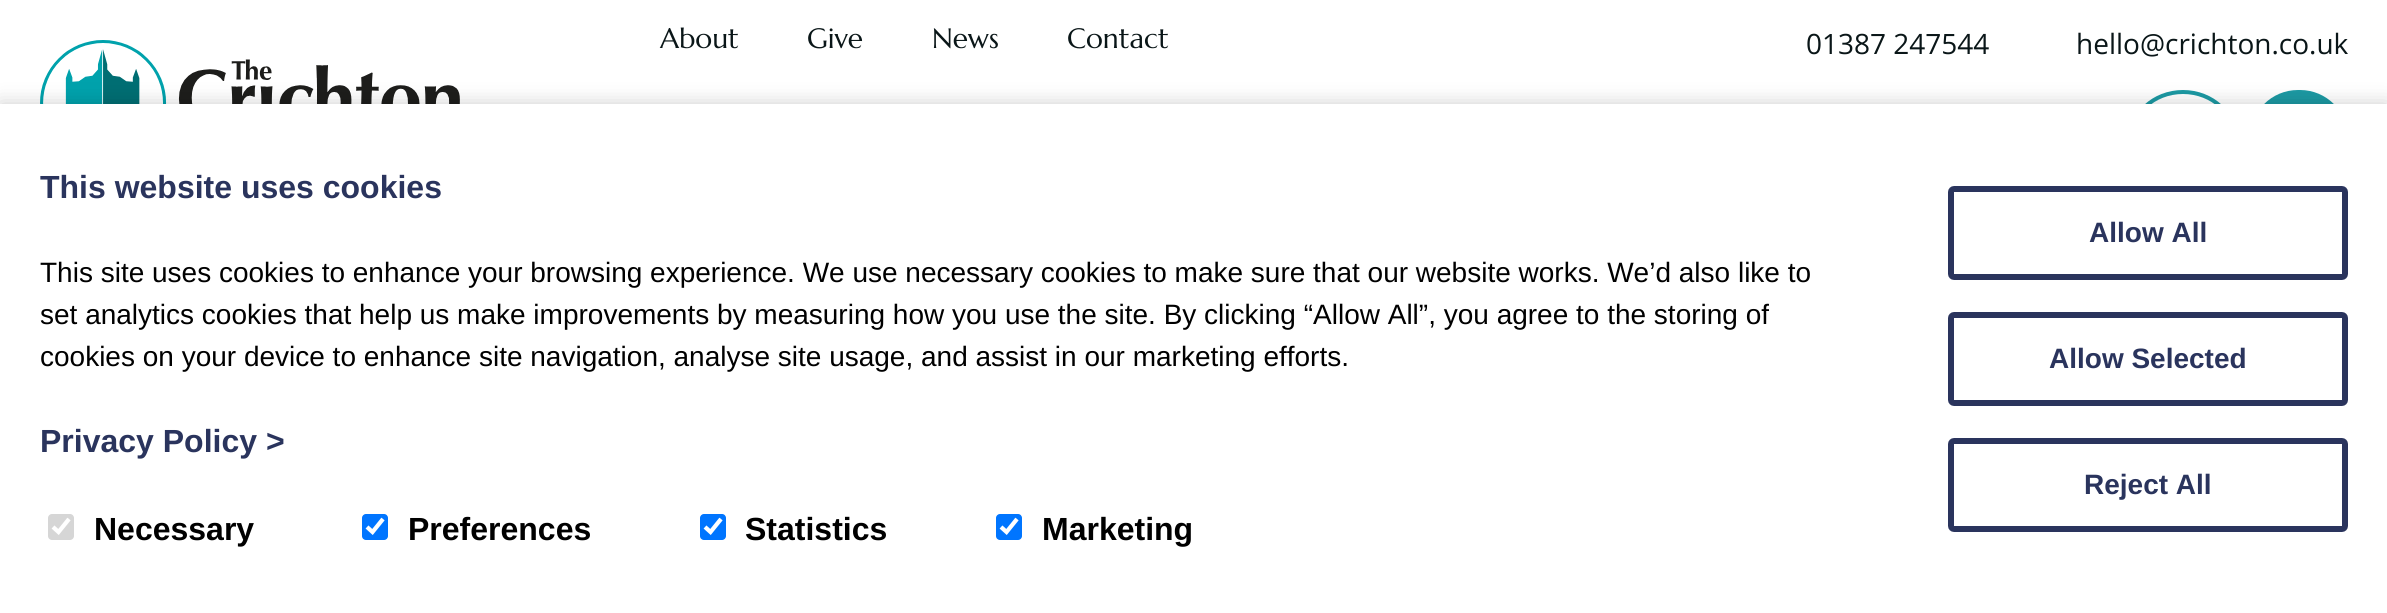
import math
import cairo

surface = cairo.ImageSurface(cairo.FORMAT_RGB24, 2387, 613)
cr = cairo.Context(surface)
options = cairo.FontOptions()
options.set_hint_metrics(cairo.HINT_METRICS_OFF)
options.set_hint_style(cairo.HINT_STYLE_NONE)
cr.set_font_options(options)
cr.set_miter_limit(4)


def rgb(code):
    cr.set_source_rgb(*(v / 255 for v in bytes.fromhex(code[-6:])))


def rrect(x, y, w, h, r):
    cr.new_sub_path()
    for i, (u, v) in enumerate([(x + w - r, y + h - r), (x + r, y + h - r), (x + r, y + r), (x + w - r, y + r)]):
        cr.arc(u, v, r, i * math.pi / 2, (i + 1) * math.pi / 2)
    cr.close_path()


def soft_shadow(x, y, w, h, r, blur, alpha):
    cr.push_group_with_content(cairo.CONTENT_ALPHA)
    cr.set_operator(cairo.OPERATOR_SOURCE)
    for i in range(15, -16, -2):
        e = blur * i / 6
        if min(w, h) + 2 * e > 0:
            cr.set_source_rgba(0, 0, 0, alpha * math.erfc((i - 1) / 8.5) / 2)
            rrect(x - e, y - e, w + 2 * e, h + 2 * e, max(0, min(r + e + blur * .6, min(w, h) / 2 + e)))
            cr.fill()
    cr.mask(cr.pop_group())


def image(path, x, y, w, h):
    cr.save()
    cr.set_source_surface(cairo.ImageSurface.create_from_png(path), x, y)
    cr.rectangle(x, y, w, h)
    cr.fill()
    cr.restore()


rgb("#ffffff")
cr.paint()
image("img/1.png", 40, 40, 420, 64)
cr.new_path()
cr.move_to(2183, 92)
cr.curve_to(2212.5, 92, 2236, 114, 2236, 141)
cr.curve_to(2236, 168, 2212.5, 190, 2183, 190)
cr.curve_to(2153.5, 190, 2130, 168, 2130, 141)
cr.curve_to(2130, 114, 2153.5, 92, 2183, 92)
cr.close_path()
rgb("#1c99a3")
cr.set_line_width(4)
cr.stroke()
rrect(2250, 90, 98, 96, 48)
cr.fill()
rgb("#000000")
soft_shadow(0, 104, 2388, 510, 0, 10, 0.2)
rgb("#ffffff")
cr.rectangle(0, 104, 2387, 509)
cr.fill()
rgb("#d6d6d6")
rrect(48, 514, 26, 26, 4)
cr.fill()
cr.new_path()
cr.move_to(53, 527)
cr.line_to(58.5, 532)
cr.line_to(69, 519)
rgb("#ffffff")
cr.set_line_width(4.2)
cr.stroke()
rgb("#0075ff")
rrect(362, 514, 26, 26, 4)
cr.fill()
cr.new_path()
cr.move_to(367, 527)
cr.line_to(372.5, 532)
cr.line_to(383, 519)
rgb("#ffffff")
cr.stroke()
rgb("#0075ff")
rrect(700, 514, 26, 26, 4)
cr.fill()
cr.new_path()
cr.move_to(705, 527)
cr.line_to(710.5, 532)
cr.line_to(721, 519)
rgb("#ffffff")
cr.stroke()
rgb("#0075ff")
rrect(996, 514, 26, 26, 4)
cr.fill()
cr.new_path()
cr.move_to(1001, 527)
cr.line_to(1006.5, 532)
cr.line_to(1017, 519)
rgb("#ffffff")
cr.stroke()
rrect(1951, 189, 394, 88, 3)
rgb("#2a345d")
cr.set_line_width(6)
cr.stroke()
rrect(1951, 315, 394, 88, 3)
cr.stroke()
rrect(1951, 441, 394, 88, 3)
cr.stroke()
cr.select_font_face("Marcellus")
cr.set_font_size(28)
rgb("#0a1618")
for x, y, s in [
    (660, 48, "About"),
    (807, 48, "Give"),
    (932, 48, "News"),
    (1067, 48, "Contact"),
]:
    cr.move_to(x, y)
    cr.show_text(s)
cr.select_font_face("Open Sans")
cr.move_to(1806, 54)
cr.show_text("01387 247544")
cr.move_to(2076, 54)
cr.show_text("hello@crichton.co.uk")
cr.select_font_face("Liberation Sans", cairo.FONT_SLANT_NORMAL, cairo.FONT_WEIGHT_BOLD)
cr.set_font_size(32)
rgb("#2a345d")
cr.move_to(40, 198)
cr.show_text("This website uses cookies")
cr.select_font_face("Liberation Sans")
cr.set_font_size(28)
rgb("#000000")
for x, y, s in [
    (40, 282, "This site uses cookies to enhance your browsing experience. We use necessary cookies to make sure that our website works. We’d also like to"),
    (40, 324, "set analytics cookies that help us make improvements by measuring how you use the site. By clicking “Allow All”, you agree to the storing of"),
    (40, 366, "cookies on your device to enhance site navigation, analyse site usage, and assist in our marketing efforts."),
]:
    cr.move_to(x, y)
    cr.show_text(s)
cr.select_font_face("Liberation Sans", cairo.FONT_SLANT_NORMAL, cairo.FONT_WEIGHT_BOLD)
cr.set_font_size(32)
rgb("#2a345d")
cr.move_to(40, 452)
cr.show_text("Privacy Policy >")
rgb("#000000")
for x, y, s in [
    (94, 540, "Necessary"),
    (408, 540, "Preferences"),
    (745, 540, "Statistics"),
    (1042, 540, "Marketing"),
]:
    cr.move_to(x, y)
    cr.show_text(s)
cr.set_font_size(28)
rgb("#2a345d")
for x, y, s in [
    (2089, 242, "Allow All"),
    (2049, 368, "Allow Selected"),
    (2084, 494, "Reject All"),
]:
    cr.move_to(x, y)
    cr.show_text(s)
surface.write_to_png("page.png")
